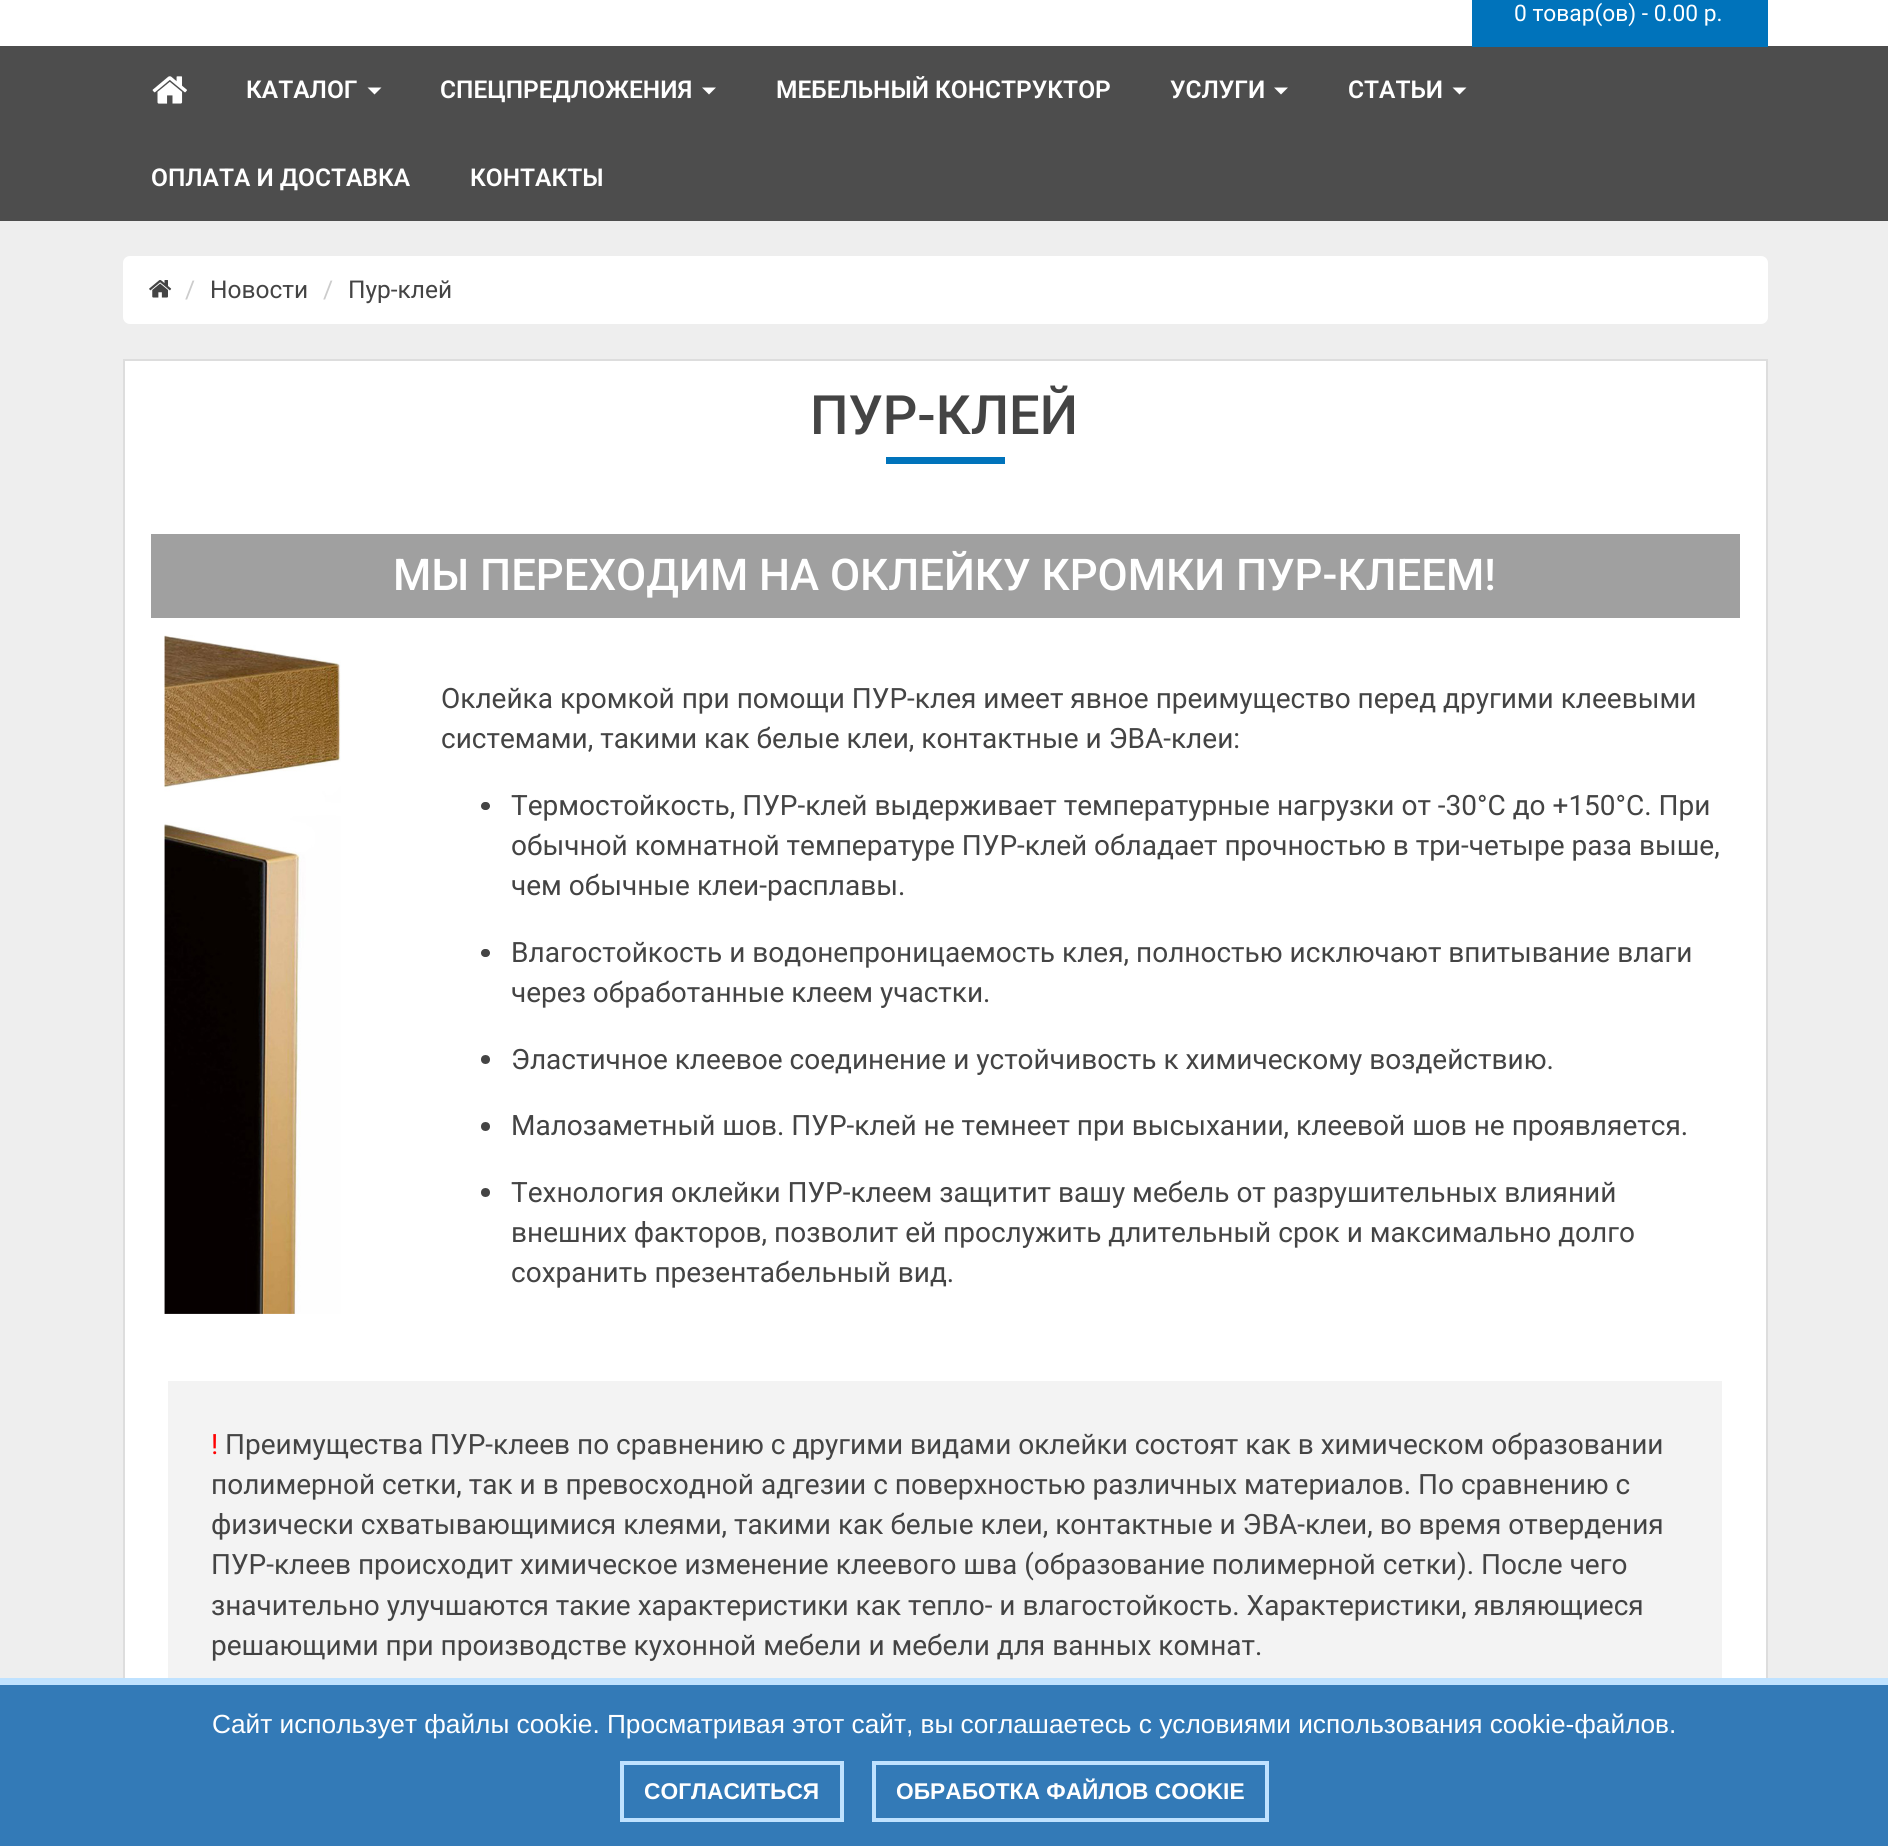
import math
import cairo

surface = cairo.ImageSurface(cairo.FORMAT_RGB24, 1888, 1846)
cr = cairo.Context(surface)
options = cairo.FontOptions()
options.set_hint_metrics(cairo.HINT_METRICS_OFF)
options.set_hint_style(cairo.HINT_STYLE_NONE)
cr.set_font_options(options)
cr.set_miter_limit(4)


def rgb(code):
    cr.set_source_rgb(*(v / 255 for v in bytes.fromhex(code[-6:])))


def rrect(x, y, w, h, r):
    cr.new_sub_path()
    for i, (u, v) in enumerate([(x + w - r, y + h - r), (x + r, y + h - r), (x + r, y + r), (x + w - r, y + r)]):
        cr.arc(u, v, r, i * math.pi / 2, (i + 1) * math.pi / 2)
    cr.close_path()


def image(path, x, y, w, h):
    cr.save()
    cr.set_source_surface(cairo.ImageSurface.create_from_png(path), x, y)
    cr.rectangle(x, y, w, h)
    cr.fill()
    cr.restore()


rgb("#eeeeee")
cr.paint()
for x, y, w, h, color in [
    (0, 0, 1888, 46, "#ffffff"),
    (0, 46, 1888, 175, "#4d4d4d"),
    (1472, 0, 296, 47, "#0073bb"),
]:
    rgb(color)
    cr.rectangle(x, y, w, h)
    cr.fill()
image("img/1.png", 152, 76, 35, 28)
rgb("#ffffff")
cr.new_path()
cr.move_to(367.5, 87.5)
cr.line_to(381.5, 87.5)
cr.line_to(374.5, 94.5)
cr.close_path()
cr.fill()
cr.new_path()
cr.move_to(702, 87.5)
cr.line_to(716, 87.5)
cr.line_to(709, 94.5)
cr.close_path()
cr.fill()
cr.new_path()
cr.move_to(1274, 87.5)
cr.line_to(1288, 87.5)
cr.line_to(1281, 94.5)
cr.close_path()
cr.fill()
cr.new_path()
cr.move_to(1452.5, 87.5)
cr.line_to(1466.5, 87.5)
cr.line_to(1459.5, 94.5)
cr.close_path()
cr.fill()
rrect(123, 256, 1645, 68, 7)
cr.fill()
image("img/2.png", 149, 280, 23, 18)
cr.rectangle(125, 361, 1641, 1317)
cr.fill()
cr.rectangle(124, 360, 1643, 1368)
rgb("#dddddd")
cr.stroke()
rgb("#0073bb")
cr.rectangle(886, 457, 119, 7)
cr.fill()
rgb("#a0a0a0")
cr.rectangle(151, 534, 1589, 84)
cr.fill()
image("img/3.png", 164, 635, 177, 679)
rgb("#444444")
rrect(481, 802, 9, 8, 4)
cr.fill()
rrect(481, 949, 9, 8, 4)
cr.fill()
cr.arc(485.5, 1059.5, 4.5, 0, 2 * math.pi)
cr.fill()
cr.arc(485.5, 1126.5, 4.5, 0, 2 * math.pi)
cr.fill()
cr.arc(485.5, 1192.5, 4.5, 0, 2 * math.pi)
cr.fill()
for x, y, w, h, color in [
    (168, 1381, 1554, 297, "#f3f3f3"),
    (0, 1685, 1888, 161, "#337ab7"),
    (0, 1678, 1888, 7, "#bfe2ff"),
]:
    rgb(color)
    cr.rectangle(x, y, w, h)
    cr.fill()
cr.rectangle(622, 1763, 220, 57)
cr.set_line_width(4)
cr.stroke()
cr.rectangle(874, 1763, 393, 57)
cr.stroke()
cr.select_font_face("Roboto")
cr.set_font_size(22.75)
rgb("#ffffff")
cr.move_to(1514, 21)
cr.show_text("0 товар(ов) - 0.00 р.")
cr.select_font_face("Roboto SemiBold")
cr.set_font_size(24.5)
for x, y, s in [
    (246, 98, "КАТАЛОГ"),
    (440, 98, "СПЕЦПРЕДЛОЖЕНИЯ"),
    (776, 98, "МЕБЕЛЬНЫЙ КОНСТРУКТОР"),
    (1170, 98, "УСЛУГИ"),
    (1348, 98, "СТАТЬИ"),
    (151, 186, "ОПЛАТА И ДОСТАВКА"),
    (470, 186, "КОНТАКТЫ"),
]:
    cr.move_to(x, y)
    cr.show_text(s)
cr.select_font_face("Roboto")
rgb("#cccccc")
cr.move_to(185, 298)
cr.show_text("/")
rgb("#444444")
cr.move_to(210, 298)
cr.show_text("Новости")
rgb("#cccccc")
cr.move_to(323, 298)
cr.show_text("/")
rgb("#444444")
cr.move_to(348, 298)
cr.show_text("Пур-клей")
cr.select_font_face("Roboto Medium")
cr.set_font_size(54.25)
cr.move_to(810, 434)
cr.show_text("ПУР-КЛЕЙ")
cr.set_font_size(43.75)
rgb("#ffffff")
cr.move_to(393, 590)
cr.show_text("МЫ ПЕРЕХОДИМ НА ОКЛЕЙКУ КРОМКИ ПУР-КЛЕЕМ!")
cr.select_font_face("Roboto")
cr.set_font_size(28)
rgb("#444444")
for x, y, s in [
    (441, 708, "Оклейка кромкой при помощи ПУР-клея имеет явное преимущество перед другими клеевыми"),
    (441, 748, "системами, такими как белые клеи, контактные и ЭВА-клеи:"),
    (511, 815, "Термостойкость, ПУР-клей выдерживает температурные нагрузки от -30°C до +150°C. При"),
    (511, 855, "обычной комнатной температуре ПУР-клей обладает прочностью в три-четыре раза выше,"),
    (511, 895, "чем обычные клеи-расплавы."),
    (511, 962, "Влагостойкость и водонепроницаемость клея, полностью исключают впитывание влаги"),
    (511, 1002, "через обработанные клеем участки."),
    (511, 1069, "Эластичное клеевое соединение и устойчивость к химическому воздействию."),
    (511, 1135, "Малозаметный шов. ПУР-клей не темнеет при высыхании, клеевой шов не проявляется."),
    (511, 1202, "Технология оклейки ПУР-клеем защитит вашу мебель от разрушительных влияний"),
    (511, 1242, "внешних факторов, позволит ей прослужить длительный срок и максимально долго"),
    (511, 1282, "сохранить презентабельный вид."),
]:
    cr.move_to(x, y)
    cr.show_text(s)
rgb("#ff0000")
cr.move_to(211, 1454)
cr.show_text("!")
rgb("#444444")
for x, y, s in [
    (225, 1454, "Преимущества ПУР-клеев по сравнению с другими видами оклейки состоят как в химическом образовании"),
    (211, 1494, "полимерной сетки, так и в превосходной адгезии с поверхностью различных материалов. По сравнению с"),
    (211, 1534, "физически схватывающимися клеями, такими как белые клеи, контактные и ЭВА-клеи, во время отвердения"),
    (211, 1574, "ПУР-клеев происходит химическое изменение клеевого шва (образование полимерной сетки). После чего"),
    (211, 1615, "значительно улучшаются такие характеристики как тепло- и влагостойкость. Характеристики, являющиеся"),
    (211, 1655, "решающими при производстве кухонной мебели и мебели для ванных комнат."),
]:
    cr.move_to(x, y)
    cr.show_text(s)
cr.select_font_face("Liberation Sans")
cr.set_font_size(26.25)
rgb("#ffffff")
cr.move_to(212, 1733)
cr.show_text("Cайт использует файлы cookie. Просматривая этот сайт, вы соглашаетесь с условиями использования cookie-файлов.")
cr.select_font_face("Liberation Sans", cairo.FONT_SLANT_NORMAL, cairo.FONT_WEIGHT_BOLD)
cr.set_font_size(22.75)
cr.move_to(644, 1799)
cr.show_text("СОГЛАСИТЬСЯ")
cr.move_to(896, 1799)
cr.show_text("ОБРАБОТКА ФАЙЛОВ COOKIE")
surface.write_to_png("page.png")
